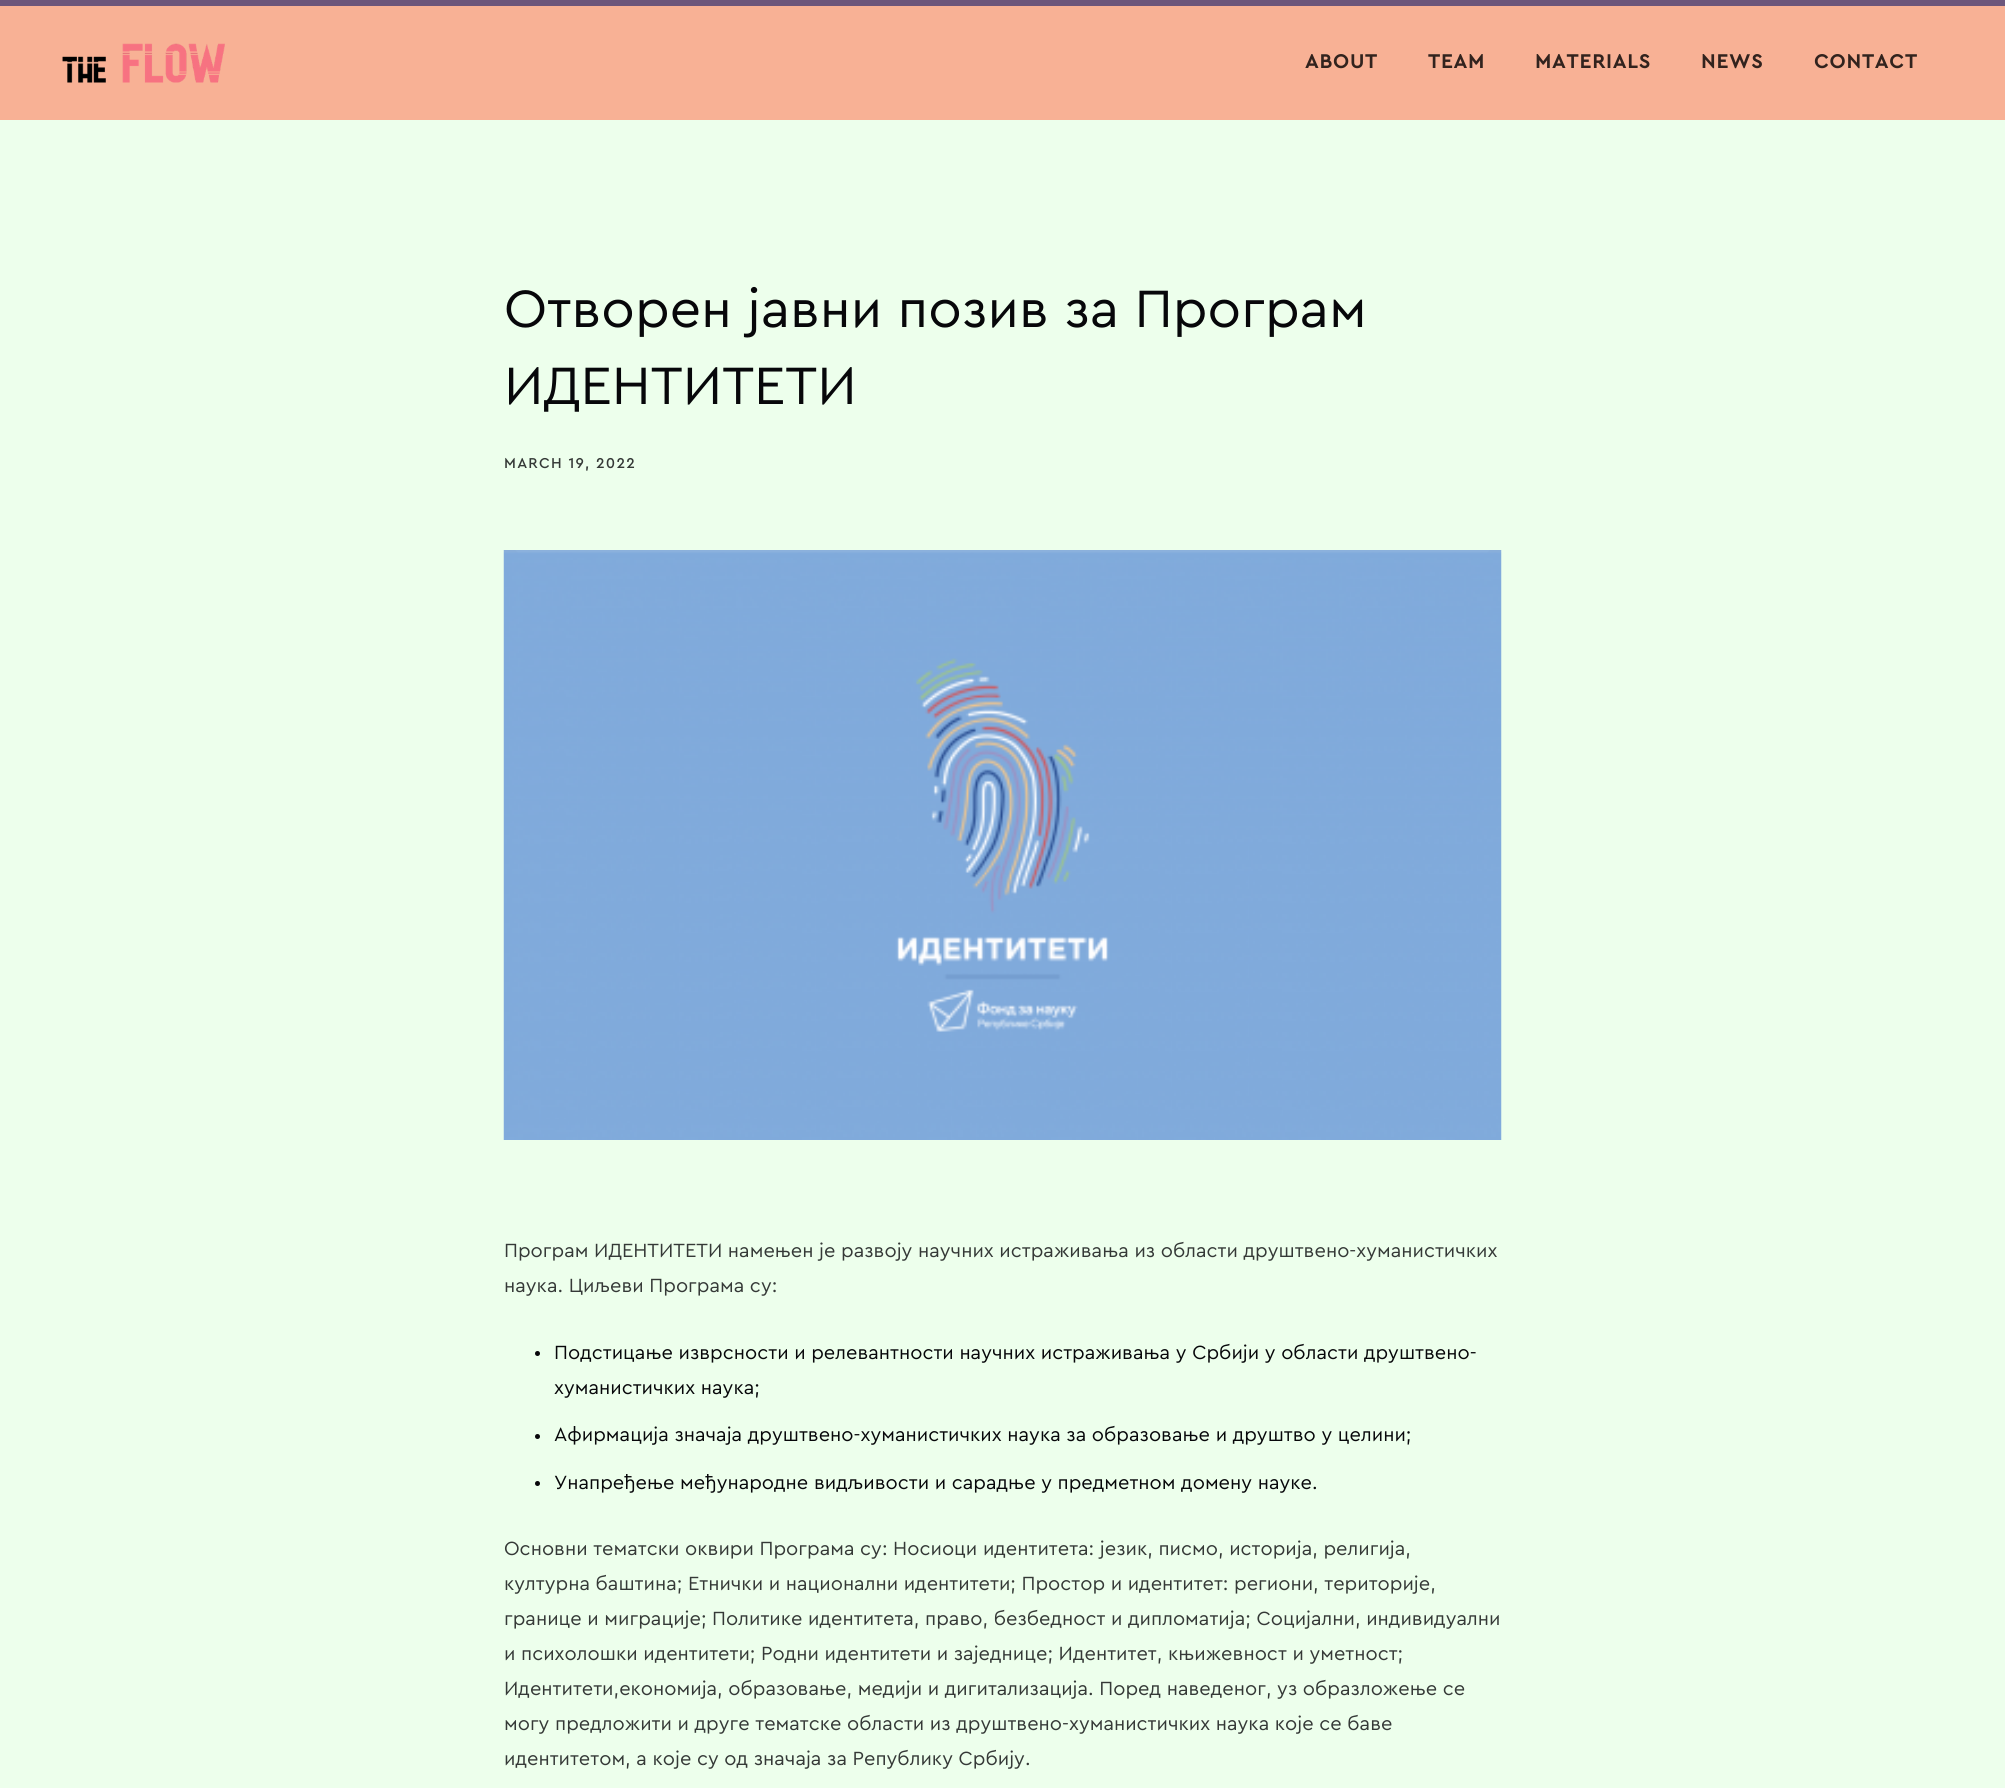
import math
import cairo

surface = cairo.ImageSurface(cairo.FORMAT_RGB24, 2005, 1788)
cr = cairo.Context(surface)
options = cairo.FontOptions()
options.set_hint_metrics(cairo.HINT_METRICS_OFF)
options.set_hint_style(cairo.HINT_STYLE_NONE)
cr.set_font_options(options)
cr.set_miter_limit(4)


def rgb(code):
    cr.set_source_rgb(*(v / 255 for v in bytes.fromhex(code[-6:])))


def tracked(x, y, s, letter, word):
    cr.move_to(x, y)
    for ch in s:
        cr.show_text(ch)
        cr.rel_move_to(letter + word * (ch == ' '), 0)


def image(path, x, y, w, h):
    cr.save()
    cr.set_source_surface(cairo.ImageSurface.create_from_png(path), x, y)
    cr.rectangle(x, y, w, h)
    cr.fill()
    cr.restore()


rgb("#edffec")
cr.paint()
rgb("#f8b195")
cr.rectangle(0, 6, 2005, 114)
cr.fill()
rgb("#6c567b")
cr.rectangle(0, 0, 2005, 6)
cr.fill()
image("img/1.png", 62, 43, 163, 40)
image("img/2.png", 504, 550, 997, 3)
image("img/3.png", 503, 550, 999, 590)
rgb("#07070a")
cr.arc(537.5, 1353.5, 2.5, 0, 2 * math.pi)
cr.fill()
cr.arc(537.5, 1436.5, 2.5, 0, 2 * math.pi)
cr.fill()
cr.arc(537.5, 1483.5, 2.5, 0, 2 * math.pi)
cr.fill()
cr.select_font_face("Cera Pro", cairo.FONT_SLANT_NORMAL, cairo.FONT_WEIGHT_BOLD)
cr.set_font_size(20)
rgb("#32231e")
for x, y, s in [
    (1305, 68, "ABOUT"),
    (1428, 68, "TEAM"),
    (1535, 68, "MATERIALS"),
    (1701, 68, "NEWS"),
    (1814, 68, "CONTACT"),
]:
    tracked(x, y, s, 1.25, 0)
cr.select_font_face("Cera Pro")
cr.set_font_size(55)
rgb("#07070a")
cr.move_to(504, 327)
cr.show_text("Отворен јавни позив за Програм")
cr.move_to(504, 404)
cr.show_text("ИДЕНТИТЕТИ")
cr.select_font_face("Cera Pro Medium")
cr.set_font_size(15)
rgb("#353937")
tracked(504, 468, "MARCH 19, 2022", 1.25, 0)
cr.select_font_face("Cera Pro")
cr.set_font_size(20)
cr.move_to(504, 1257)
cr.show_text("Програм ИДЕНТИТЕТИ намењен је развоју научних истраживања из области друштвено-хуманистичких")
cr.move_to(504, 1292)
cr.show_text("наука. Циљеви Програма су:")
rgb("#07070a")
for x, y, s in [
    (554, 1359, "Подстицање изврсности и релевантности научних истраживања у Србији у области друштвено-"),
    (554, 1394, "хуманистичких наука;"),
    (554, 1441, "Афирмација значаја друштвено-хуманистичких наука за образовање и друштво у целини;"),
    (554, 1489, "Унапређење међународне видљивости и сарадње у предметном домену науке."),
]:
    cr.move_to(x, y)
    cr.show_text(s)
rgb("#353937")
for x, y, s in [
    (504, 1555, "Основни тематски оквири Програма су: Носиоци идентитета: језик, писмо, историја, религија,"),
    (504, 1590, "културна баштина; Етнички и национални идентитети; Простор и идентитет: региони, територије,"),
    (504, 1625, "границе и миграције; Политике идентитета, право, безбедност и дипломатија; Социјални, индивидуални"),
    (504, 1660, "и психолошки идентитети; Родни идентитети и заједнице; Идентитет, књижевност и уметност;"),
    (504, 1695, "Идентитети,економија, образовање, медији и дигитализација. Поред наведеног, уз образложење се"),
    (504, 1730, "могу предложити и друге тематске области из друштвено-хуманистичких наука које се баве"),
    (504, 1765, "идентитетом, а које су од значаја за Републику Србију."),
]:
    cr.move_to(x, y)
    cr.show_text(s)
surface.write_to_png("page.png")
